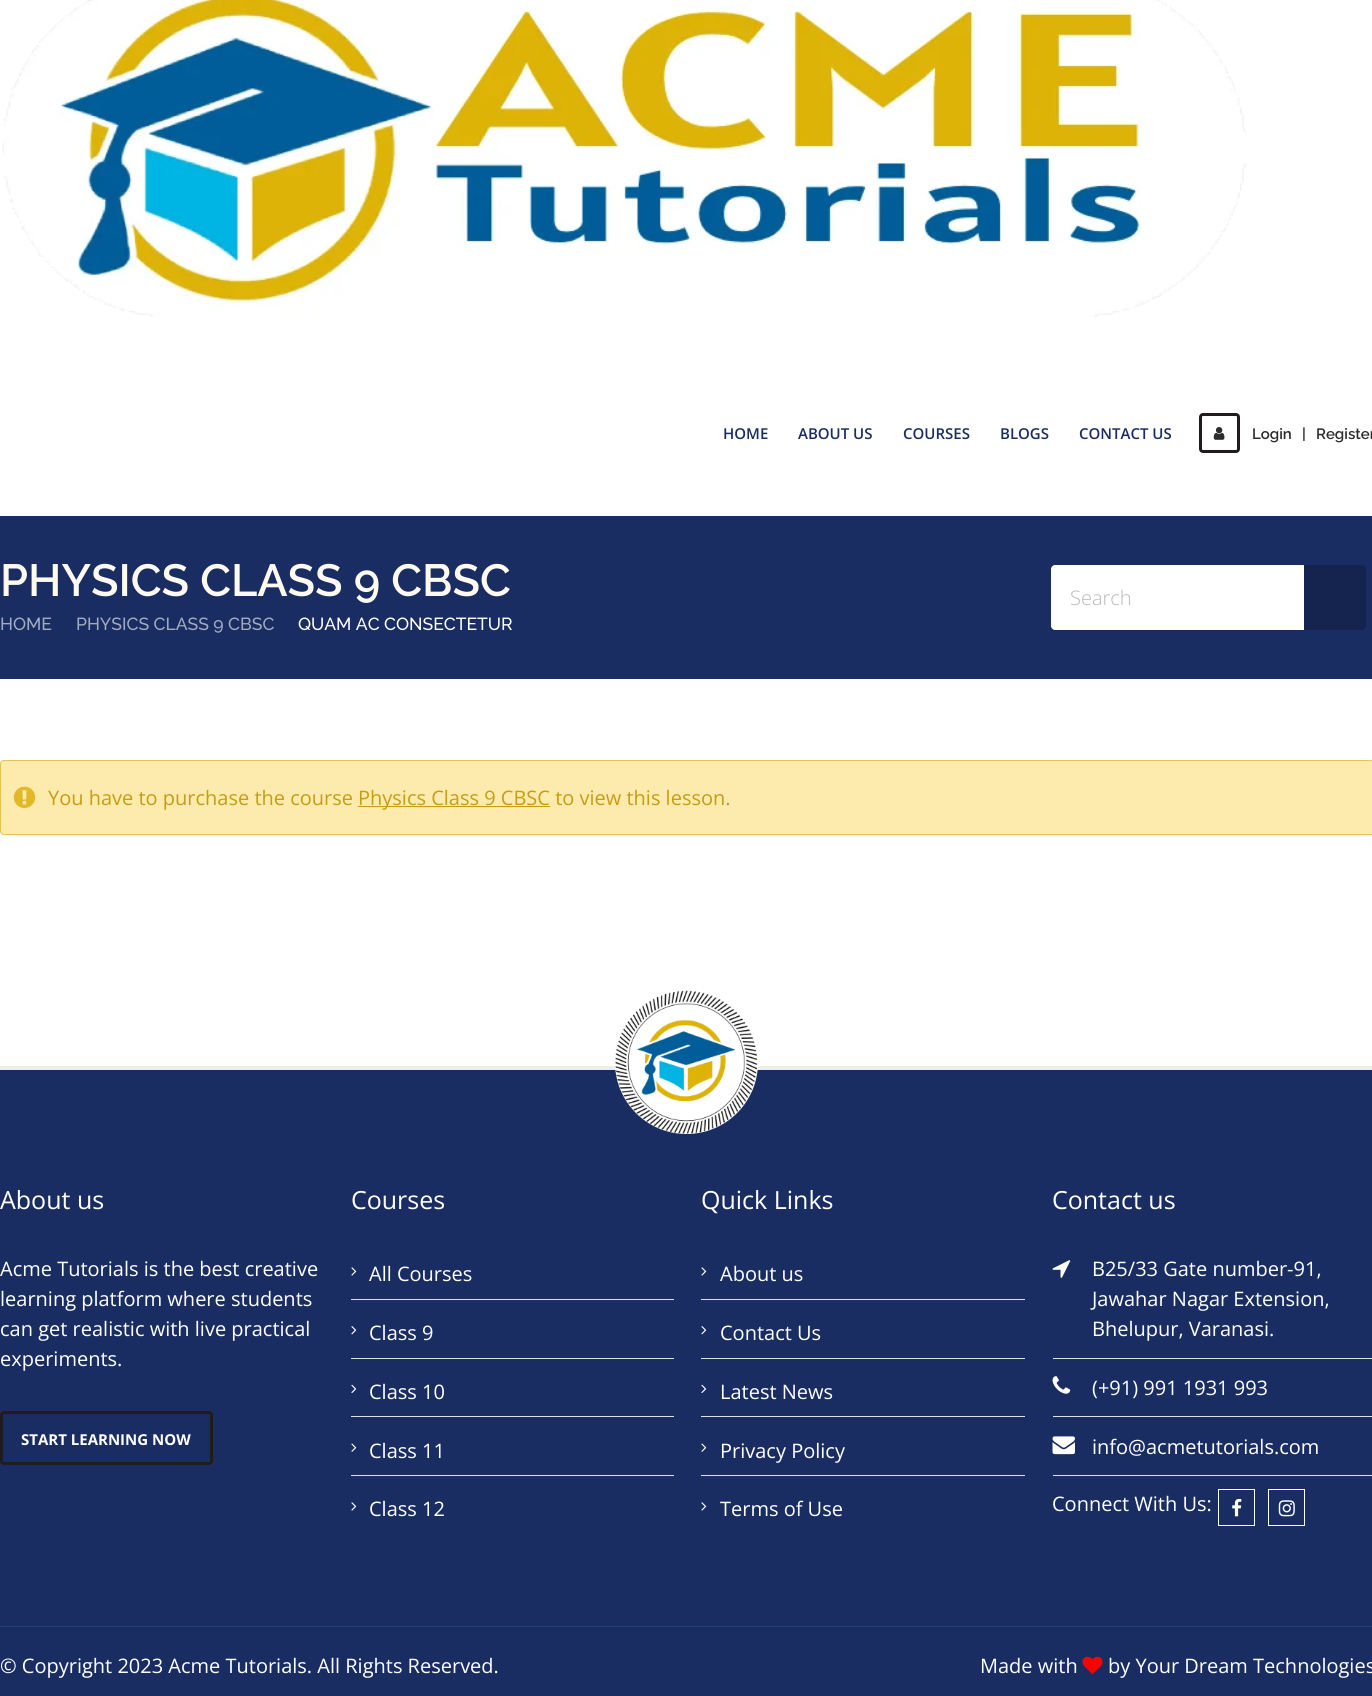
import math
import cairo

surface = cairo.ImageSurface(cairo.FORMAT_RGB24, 1372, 1696)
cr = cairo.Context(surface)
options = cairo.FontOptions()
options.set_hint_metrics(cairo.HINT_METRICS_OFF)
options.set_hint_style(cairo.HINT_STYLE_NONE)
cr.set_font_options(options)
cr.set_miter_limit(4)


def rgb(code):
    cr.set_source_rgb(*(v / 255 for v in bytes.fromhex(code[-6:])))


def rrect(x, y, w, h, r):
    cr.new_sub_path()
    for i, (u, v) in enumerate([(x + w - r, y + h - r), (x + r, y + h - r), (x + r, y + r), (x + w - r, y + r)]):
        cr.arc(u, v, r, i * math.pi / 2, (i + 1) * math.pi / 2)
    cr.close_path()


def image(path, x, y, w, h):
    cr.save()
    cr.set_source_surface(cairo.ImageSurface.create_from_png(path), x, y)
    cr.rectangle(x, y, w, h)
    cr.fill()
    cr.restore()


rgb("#ffffff")
cr.paint()
image("img/1.png", 2, 0, 1245, 318)
rrect(1200.5, 414.5, 38, 37, 2.5)
rgb("#201c1d")
cr.set_line_width(3)
cr.stroke()
image("img/2.png", 1213, 427, 12, 13)
rgb("#1a2d62")
cr.rectangle(0, 516, 1372, 163)
cr.fill()
rgb("#ffffff")
cr.new_path()
cr.move_to(1055, 565)
cr.line_to(1304, 565)
cr.line_to(1304, 630)
cr.line_to(1055, 630)
cr.curve_to(1053, 630, 1051, 628, 1051, 626)
cr.line_to(1051, 569)
cr.curve_to(1051, 567, 1053, 565, 1055, 565)
cr.close_path()
cr.fill()
rgb("#15244e")
cr.new_path()
cr.move_to(1304, 565)
cr.line_to(1362, 565)
cr.curve_to(1364, 565, 1366, 567, 1366, 569)
cr.line_to(1366, 626)
cr.curve_to(1366, 628, 1364, 630, 1362, 630)
cr.line_to(1304, 630)
cr.close_path()
cr.fill()
rgb("#fdebae")
rrect(0.5, 760.5, 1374, 74, 3.5)
cr.fill_preserve()
rgb("#e6c555")
cr.set_line_width(1)
cr.stroke()
image("img/3.png", 13, 786, 23, 22)
for x, y, w, h, color in [
    (358, 806, 192, 1, "#c79d13"),
    (0, 1070, 1372, 626, "#1a2d62"),
    (0, 1066, 1372, 4, "#ededed"),
]:
    rgb(color)
    cr.rectangle(x, y, w, h)
    cr.fill()
rgb("#ffffff")
cr.arc(686.5, 1062.5, 71.5, 0, 2 * math.pi)
cr.fill()
image("img/4.png", 615, 990, 143, 144)
rrect(1.5, 1412.5, 210, 51, 2.5)
rgb("#201c1d")
cr.set_line_width(3)
cr.stroke()
rgb("#dfdfdf")
cr.rectangle(351, 1299, 323, 1)
cr.fill()
image("img/5.png", 351, 1267, 6, 9)
cr.rectangle(351, 1358, 323, 1)
cr.fill()
image("img/6.png", 351, 1326, 6, 9)
cr.rectangle(351, 1416, 323, 1)
cr.fill()
image("img/7.png", 351, 1384, 6, 9)
cr.rectangle(351, 1475, 323, 1)
cr.fill()
image("img/8.png", 351, 1443, 6, 9)
image("img/5.png", 351, 1502, 6, 9)
cr.rectangle(701, 1299, 324, 1)
cr.fill()
image("img/5.png", 701, 1267, 6, 9)
cr.rectangle(701, 1358, 324, 1)
cr.fill()
image("img/6.png", 701, 1326, 6, 9)
cr.rectangle(701, 1416, 324, 1)
cr.fill()
image("img/7.png", 701, 1384, 6, 9)
cr.rectangle(701, 1475, 324, 1)
cr.fill()
image("img/8.png", 701, 1443, 6, 9)
image("img/5.png", 701, 1502, 6, 9)
cr.rectangle(1053, 1358, 319, 1)
cr.fill()
image("img/9.png", 1052, 1260, 19, 18)
cr.rectangle(1053, 1416, 319, 1)
cr.fill()
image("img/10.png", 1052, 1376, 19, 18)
cr.rectangle(1053, 1475, 319, 1)
cr.fill()
image("img/11.png", 1052, 1436, 23, 19)
cr.rectangle(1218.5, 1489.5, 36, 36)
rgb("#ffffff")
cr.set_line_width(1)
cr.stroke()
image("img/12.png", 1232, 1498, 10, 19)
cr.rectangle(1268.5, 1489.5, 36, 36)
cr.stroke()
image("img/13.png", 1278, 1500, 17, 17)
rgb("#243c80")
cr.rectangle(0, 1626, 1372, 1)
cr.fill()
image("img/14.png", 1082, 1656, 21, 18)
cr.select_font_face("Open Sans SemiBold")
cr.set_font_size(15)
rgb("#1a2d62")
for x, y, s in [
    (723, 439, "HOME"),
    (798, 439, "ABOUT US"),
    (903, 439, "COURSES"),
    (1000, 439, "BLOGS"),
    (1079, 439, "CONTACT US"),
]:
    cr.move_to(x, y)
    cr.show_text(s)
cr.select_font_face("Raleway SemiBold")
rgb("#2c2c2c")
for x, y, s in [
    (1252, 439, "Login"),
    (1302, 439, "|"),
    (1316, 439, "Register"),
]:
    cr.move_to(x, y)
    cr.show_text(s)
cr.set_font_size(45)
rgb("#fffaf0")
cr.move_to(0, 596)
cr.show_text("PHYSICS CLASS 9 CBSC")
cr.select_font_face("Raleway Medium")
cr.set_font_size(17.5)
rgb("#a3abc0")
cr.move_to(0, 630)
cr.show_text("HOME")
cr.move_to(76, 630)
cr.show_text("PHYSICS CLASS 9 CBSC")
rgb("#ffffff")
cr.move_to(298, 630)
cr.show_text("QUAM AC CONSECTETUR")
cr.select_font_face("Open Sans Light")
cr.set_font_size(20)
rgb("#bababa")
cr.move_to(1070, 605)
cr.show_text("Search")
cr.select_font_face("Open Sans")
rgb("#c79d13")
cr.move_to(48, 805)
cr.show_text("You have to purchase the course")
cr.move_to(358, 805)
cr.show_text("Physics Class 9 CBSC to view this lesson.")
cr.set_font_size(25)
rgb("#ffffff")
cr.move_to(0, 1209)
cr.show_text("About us")
cr.set_font_size(20)
for x, y, s in [
    (0, 1276, "Acme Tutorials is the best creative"),
    (0, 1306, "learning platform where students"),
    (0, 1336, "can get realistic with live practical"),
    (0, 1366, "experiments."),
]:
    cr.move_to(x, y)
    cr.show_text(s)
cr.select_font_face("Open Sans", cairo.FONT_SLANT_NORMAL, cairo.FONT_WEIGHT_BOLD)
cr.set_font_size(15)
cr.move_to(21, 1445)
cr.show_text("START LEARNING NOW")
cr.select_font_face("Open Sans")
cr.set_font_size(25)
cr.move_to(351, 1209)
cr.show_text("Courses")
cr.set_font_size(20)
for x, y, s in [
    (369, 1281, "All Courses"),
    (369, 1340, "Class 9"),
    (369, 1399, "Class 10"),
    (369, 1458, "Class 11"),
    (369, 1516, "Class 12"),
]:
    cr.move_to(x, y)
    cr.show_text(s)
cr.set_font_size(25)
cr.move_to(701, 1209)
cr.show_text("Quick Links")
cr.set_font_size(20)
for x, y, s in [
    (720, 1281, "About us"),
    (720, 1340, "Contact Us"),
    (720, 1399, "Latest News"),
    (720, 1458, "Privacy Policy"),
    (720, 1516, "Terms of Use"),
]:
    cr.move_to(x, y)
    cr.show_text(s)
cr.set_font_size(25)
cr.move_to(1052, 1209)
cr.show_text("Contact us")
cr.set_font_size(20)
for x, y, s in [
    (1092, 1276, "B25/33 Gate number-91,"),
    (1092, 1306, "Jawahar Nagar Extension,"),
    (1092, 1336, "Bhelupur, Varanasi."),
    (1092, 1395, "(+91) 991 1931 993"),
    (1092, 1454, "info@acmetutorials.com"),
    (1052, 1511, "Connect With Us:"),
    (0, 1673, "© Copyright 2023 Acme Tutorials. All Rights Reserved."),
    (980, 1673, "Made with"),
    (1108, 1673, "by Your Dream Technologies"),
]:
    cr.move_to(x, y)
    cr.show_text(s)
surface.write_to_png("page.png")
